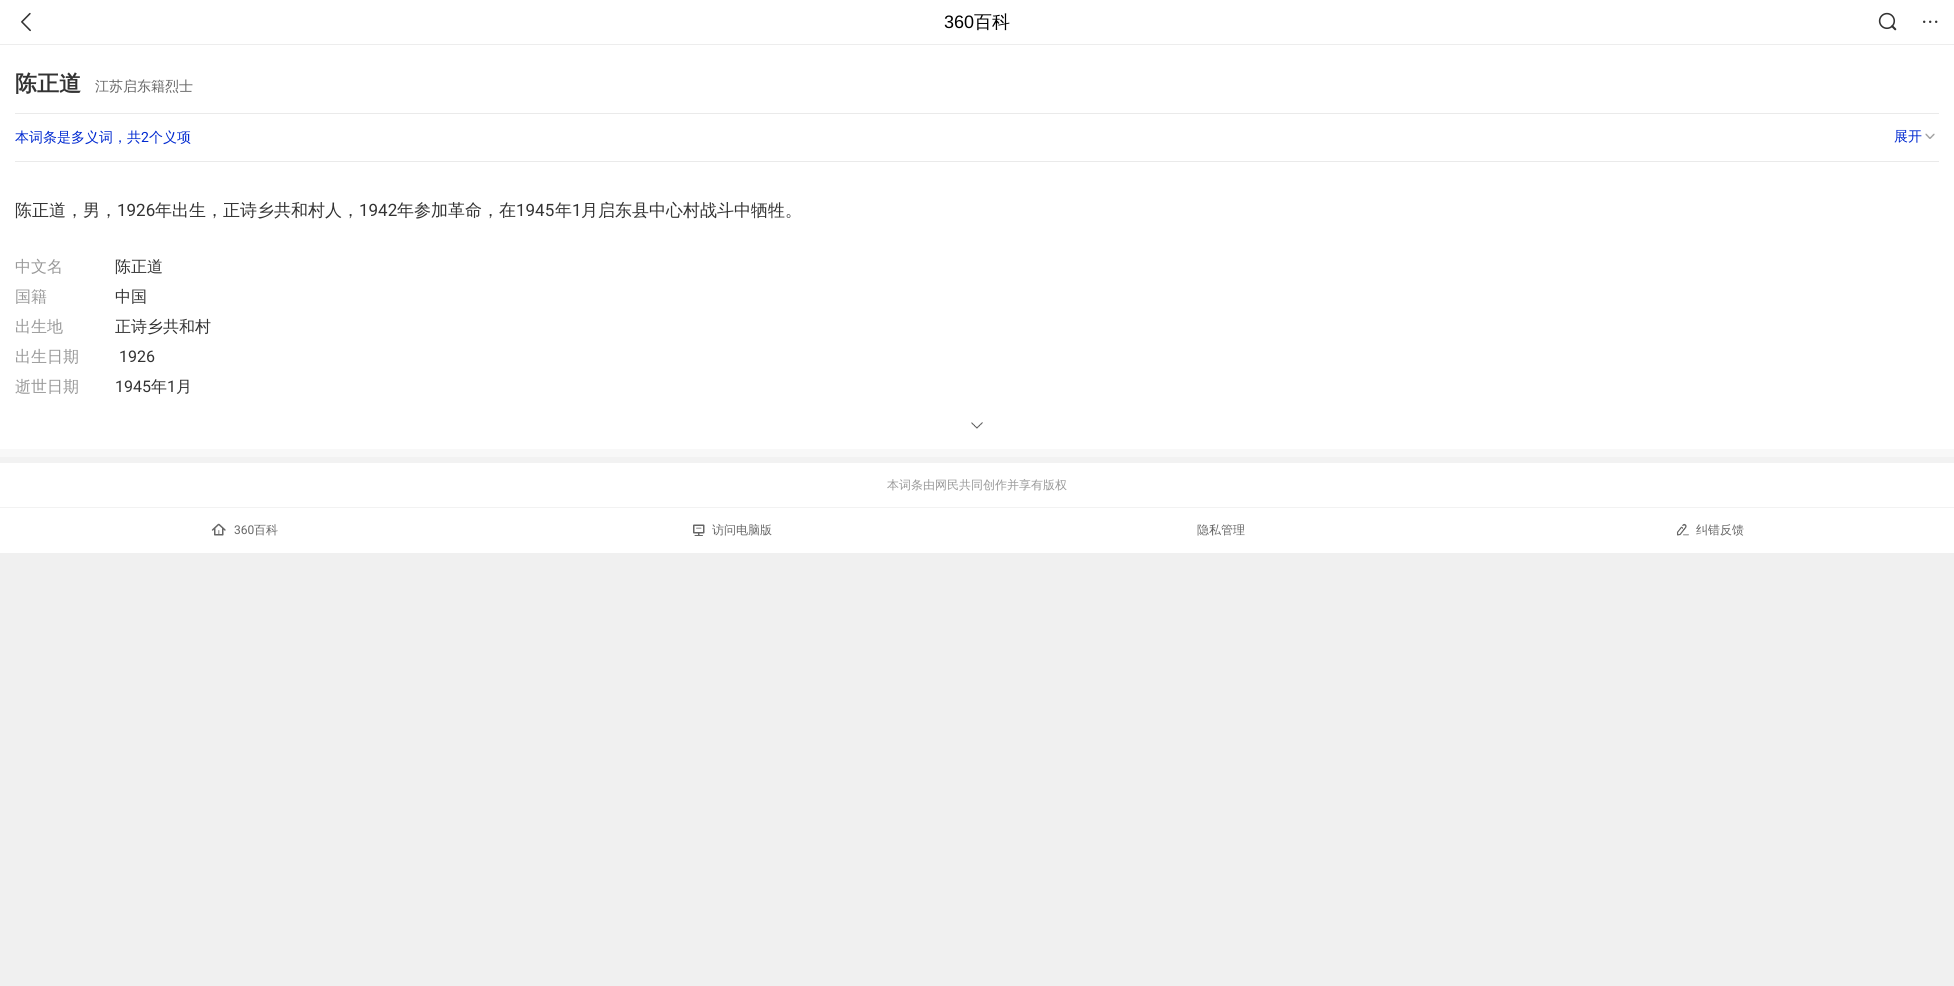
import math
import cairo

surface = cairo.ImageSurface(cairo.FORMAT_RGB24, 1954, 986)
cr = cairo.Context(surface)
options = cairo.FontOptions()
options.set_hint_metrics(cairo.HINT_METRICS_OFF)
options.set_hint_style(cairo.HINT_STYLE_NONE)
cr.set_font_options(options)
cr.set_miter_limit(4)


def rgb(code):
    cr.set_source_rgb(*(v / 255 for v in bytes.fromhex(code[-6:])))


def image(path, x, y, w, h):
    cr.save()
    cr.set_source_surface(cairo.ImageSurface.create_from_png(path), x, y)
    cr.rectangle(x, y, w, h)
    cr.fill()
    cr.restore()


rgb("#f0f0f0")
cr.paint()
for x, y, w, h, color in [
    (0, 45, 1954, 508, "#ffffff"),
    (0, 0, 1954, 44, "#ffffff"),
    (0, 44, 1954, 1, "#ededed"),
]:
    rgb(color)
    cr.rectangle(x, y, w, h)
    cr.fill()
image("img/1.png", 21, 12, 10, 20)
image("img/2.png", 1878, 12, 19, 19)
rgb("#333333")
cr.arc(1924.2, 21.8, 1.2, 0, 2 * math.pi)
cr.fill()
cr.arc(1930.2, 21.8, 1.2, 0, 2 * math.pi)
cr.fill()
cr.arc(1936.2, 21.8, 1.2, 0, 2 * math.pi)
cr.fill()
rgb("#eaeaea")
cr.rectangle(15, 113, 1924, 1)
cr.fill()
image("img/3.png", 1925, 133, 10, 6)
cr.rectangle(15, 161, 1924, 1)
cr.fill()
rgb("#f8f8f8")
cr.rectangle(0, 449, 1954, 8)
cr.fill()
image("img/4.png", 971, 422, 12, 7)
rgb("#f2f2f2")
cr.rectangle(0, 457, 1954, 6)
cr.fill()
cr.rectangle(0, 507, 1954, 1)
cr.fill()
image("img/5.png", 211, 523, 15, 13)
image("img/6.png", 693, 524, 12, 12)
image("img/7.png", 1676, 523, 13, 13)
cr.select_font_face("Liberation Sans")
cr.set_font_size(18)
rgb("#000000")
cr.move_to(944, 28)
cr.show_text("360")
cr.select_font_face("WenQuanYi Zen Hei Medium")
cr.move_to(974, 28)
cr.show_text("百科")
cr.select_font_face("WenQuanYi Zen Hei", cairo.FONT_SLANT_NORMAL, cairo.FONT_WEIGHT_BOLD)
cr.set_font_size(22)
rgb("#333333")
cr.move_to(15, 91)
cr.show_text("陈正道")
cr.select_font_face("WenQuanYi Zen Hei Medium")
cr.set_font_size(14)
rgb("#666666")
cr.move_to(95, 91)
cr.show_text("江苏启东籍烈士")
rgb("#0029d0")
cr.move_to(15, 142)
cr.show_text("本词条是多义词，共")
cr.select_font_face("Roboto")
cr.move_to(141, 142)
cr.show_text("2")
cr.select_font_face("WenQuanYi Zen Hei Medium")
cr.move_to(149, 142)
cr.show_text("个义项")
cr.move_to(1894, 141)
cr.show_text("展开")
cr.set_font_size(17)
rgb("#333333")
cr.move_to(15, 216)
cr.show_text("陈正道，男，")
cr.select_font_face("Roboto")
cr.move_to(117, 216)
cr.show_text("1926")
cr.select_font_face("WenQuanYi Zen Hei Medium")
cr.move_to(155, 216)
cr.show_text("年出生，正诗乡共和村人，")
cr.select_font_face("Roboto")
cr.move_to(359, 216)
cr.show_text("1942")
cr.select_font_face("WenQuanYi Zen Hei Medium")
cr.move_to(397, 216)
cr.show_text("年参加革命，在")
cr.select_font_face("Roboto")
cr.move_to(516, 216)
cr.show_text("1945")
cr.select_font_face("WenQuanYi Zen Hei Medium")
cr.move_to(555, 216)
cr.show_text("年")
cr.select_font_face("Roboto")
cr.move_to(572, 216)
cr.show_text("1")
cr.select_font_face("WenQuanYi Zen Hei Medium")
cr.move_to(581, 216)
cr.show_text("月启东县中心村战斗中牺牲。")
cr.set_font_size(16)
rgb("#999999")
cr.move_to(15, 272)
cr.show_text("中文名")
rgb("#333333")
cr.move_to(115, 272)
cr.show_text("陈正道")
rgb("#999999")
cr.move_to(15, 302)
cr.show_text("国籍")
rgb("#333333")
cr.move_to(115, 302)
cr.show_text("中国")
rgb("#999999")
cr.move_to(15, 332)
cr.show_text("出生地")
rgb("#333333")
cr.move_to(115, 332)
cr.show_text("正诗乡共和村")
rgb("#999999")
cr.move_to(15, 362)
cr.show_text("出生日期")
cr.select_font_face("Roboto")
rgb("#333333")
cr.move_to(119, 362)
cr.show_text("1926")
cr.select_font_face("WenQuanYi Zen Hei Medium")
rgb("#999999")
cr.move_to(15, 392)
cr.show_text("逝世日期")
cr.select_font_face("Roboto")
rgb("#333333")
cr.move_to(115, 392)
cr.show_text("1945")
cr.select_font_face("WenQuanYi Zen Hei Medium")
cr.move_to(151, 392)
cr.show_text("年")
cr.select_font_face("Roboto")
cr.move_to(167, 392)
cr.show_text("1")
cr.select_font_face("WenQuanYi Zen Hei Medium")
cr.move_to(176, 392)
cr.show_text("月")
cr.set_font_size(12)
rgb("#999999")
cr.move_to(887, 489)
cr.show_text("本词条由网民共同创作并享有版权")
cr.select_font_face("Roboto")
rgb("#666666")
cr.move_to(234, 534)
cr.show_text("360")
cr.select_font_face("WenQuanYi Zen Hei Medium")
for x, y, s in [
    (254, 534, "百科"),
    (712, 534, "访问电脑版"),
    (1197, 534, "隐私管理"),
    (1696, 534, "纠错反馈"),
]:
    cr.move_to(x, y)
    cr.show_text(s)
surface.write_to_png("page.png")
